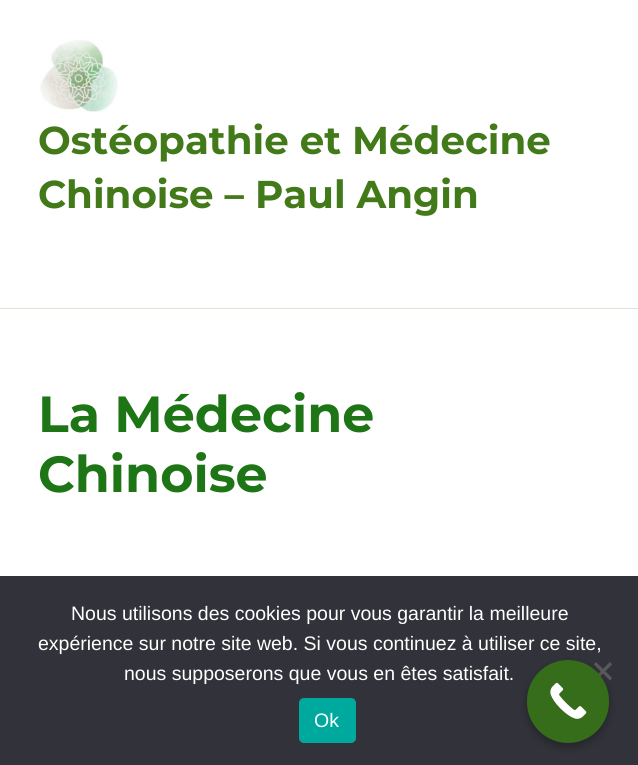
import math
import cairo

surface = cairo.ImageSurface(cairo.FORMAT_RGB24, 638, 765)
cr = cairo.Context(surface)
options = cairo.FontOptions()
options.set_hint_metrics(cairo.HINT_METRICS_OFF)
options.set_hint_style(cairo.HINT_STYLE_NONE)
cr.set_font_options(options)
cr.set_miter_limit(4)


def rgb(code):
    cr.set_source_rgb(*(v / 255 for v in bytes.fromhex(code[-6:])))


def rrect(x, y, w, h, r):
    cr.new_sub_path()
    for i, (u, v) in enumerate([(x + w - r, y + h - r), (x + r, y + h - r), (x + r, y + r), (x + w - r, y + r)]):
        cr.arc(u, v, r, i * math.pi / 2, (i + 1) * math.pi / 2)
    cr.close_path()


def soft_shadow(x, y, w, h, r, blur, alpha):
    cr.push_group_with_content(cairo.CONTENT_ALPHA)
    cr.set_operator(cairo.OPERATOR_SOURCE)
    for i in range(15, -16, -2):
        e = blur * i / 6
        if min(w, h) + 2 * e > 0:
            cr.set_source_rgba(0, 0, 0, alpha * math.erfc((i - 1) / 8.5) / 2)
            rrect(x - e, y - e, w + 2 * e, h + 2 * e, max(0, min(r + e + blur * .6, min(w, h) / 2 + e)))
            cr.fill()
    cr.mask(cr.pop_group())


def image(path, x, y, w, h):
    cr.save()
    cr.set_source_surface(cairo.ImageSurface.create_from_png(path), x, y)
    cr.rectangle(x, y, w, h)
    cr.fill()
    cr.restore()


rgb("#ffffff")
cr.paint()
rgb("#d9e4d1")
cr.rectangle(0, 308, 638, 1)
cr.fill()
image("img/1.png", 40, 40, 78, 72)
rgb("#32323a")
cr.rectangle(0, 576, 638, 189)
cr.fill()
rgb("#59595d")
cr.new_path()
cr.move_to(610, 662)
cr.line_to(612, 664.5)
cr.line_to(596, 680.5)
cr.line_to(594, 678)
cr.close_path()
cr.fill()
cr.new_path()
cr.move_to(594, 664.5)
cr.line_to(596, 662)
cr.line_to(612, 678)
cr.line_to(610, 680.5)
cr.close_path()
cr.fill()
rgb("#00a99d")
rrect(299, 698, 57, 45, 5)
cr.fill()
rgb("#000000")
soft_shadow(527, 665, 82, 82, 41, 4.5, 0.3)
rgb("#356d1b")
rrect(527, 660, 82, 83, 41)
cr.fill()
image("img/2.png", 550, 682, 37, 37)
cr.select_font_face("Montserrat", cairo.FONT_SLANT_NORMAL, cairo.FONT_WEIGHT_BOLD)
cr.set_font_size(38.8)
rgb("#427a1a")
cr.move_to(38, 154)
cr.show_text("Ostéopathie et Médecine")
cr.move_to(38, 208)
cr.show_text("Chinoise – Paul Angin")
cr.set_font_size(50.75)
rgb("#1d7515")
cr.move_to(38, 432)
cr.show_text("La Médecine")
cr.move_to(38, 492)
cr.show_text("Chinoise")
cr.select_font_face("Liberation Sans")
cr.set_font_size(19.5)
rgb("#ffffff")
for x, y, s in [
    (71, 620, "Nous utilisons des cookies pour vous garantir la meilleure"),
    (38, 650, "expérience sur notre site web. Si vous continuez à utiliser ce site,"),
    (124, 680, "nous supposerons que vous en êtes satisfait."),
    (314, 727, "Ok"),
]:
    cr.move_to(x, y)
    cr.show_text(s)
surface.write_to_png("page.png")
